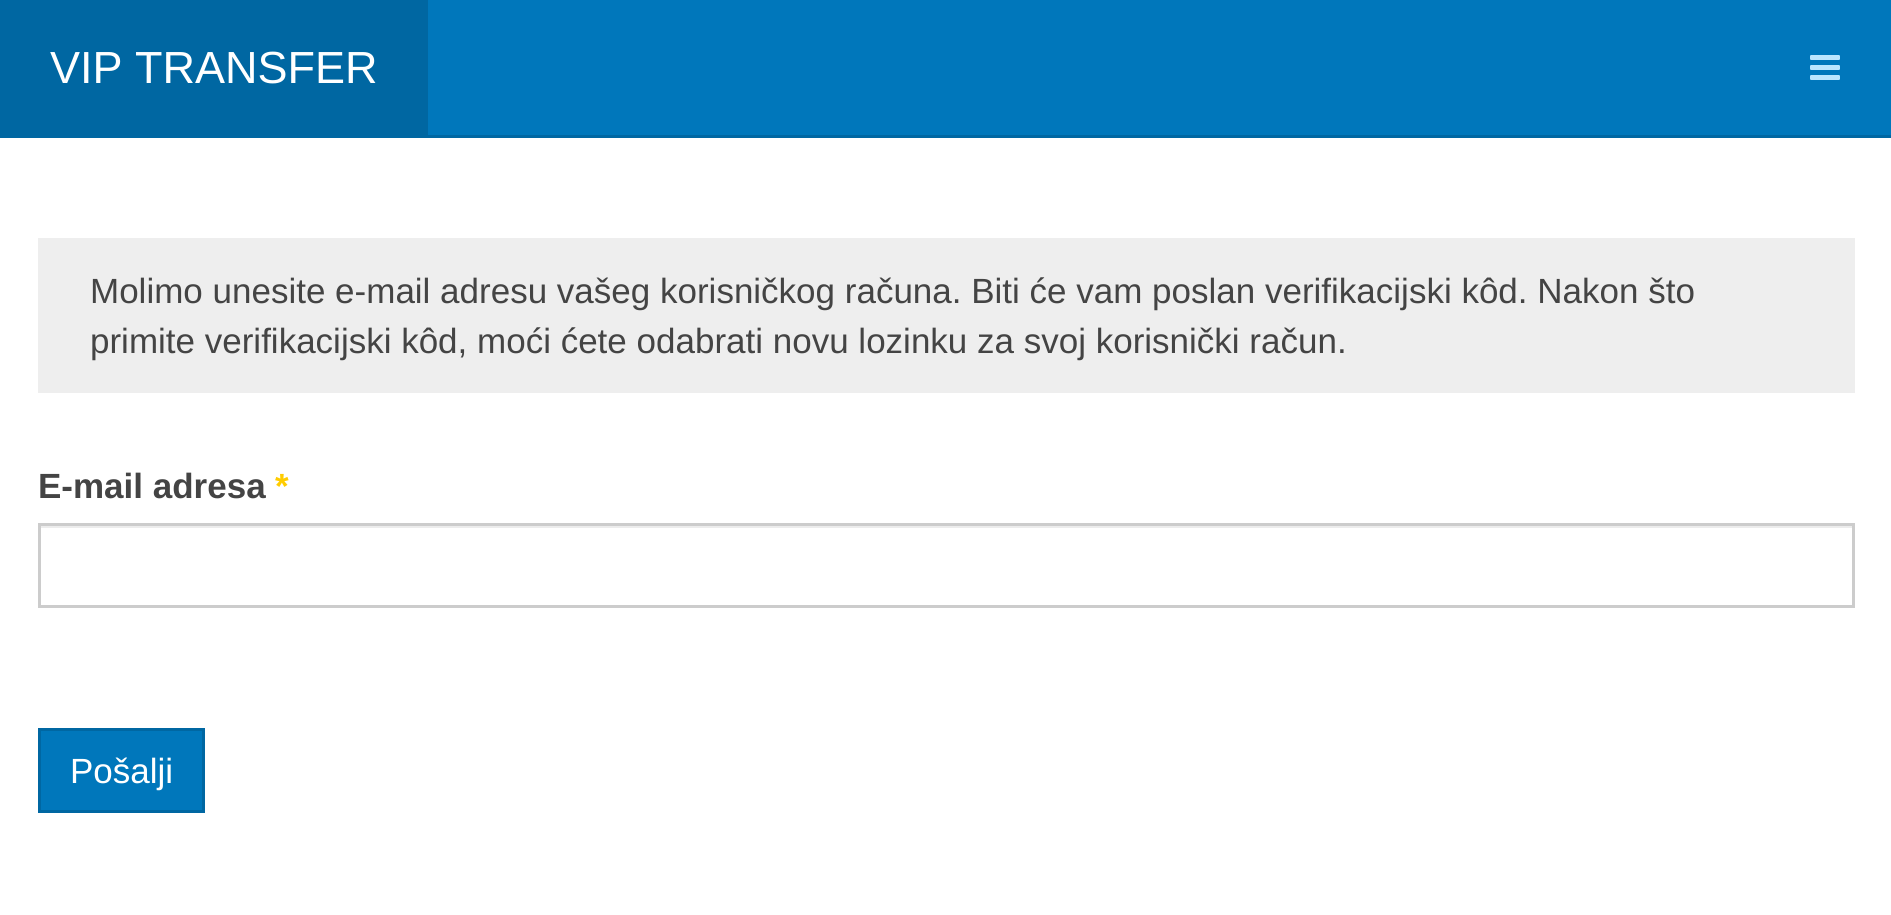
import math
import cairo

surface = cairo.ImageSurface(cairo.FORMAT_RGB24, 1891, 915)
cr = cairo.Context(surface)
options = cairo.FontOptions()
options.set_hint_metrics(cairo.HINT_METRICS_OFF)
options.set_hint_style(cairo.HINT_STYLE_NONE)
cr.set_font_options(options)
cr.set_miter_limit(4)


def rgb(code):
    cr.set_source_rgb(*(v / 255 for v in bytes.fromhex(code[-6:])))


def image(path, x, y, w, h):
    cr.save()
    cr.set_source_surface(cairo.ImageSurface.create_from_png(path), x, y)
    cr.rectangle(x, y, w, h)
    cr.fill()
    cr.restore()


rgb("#ffffff")
cr.paint()
for x, y, w, h, color in [
    (428, 0, 1463, 135, "#0077bb"),
    (428, 135, 1463, 3, "#0067a2"),
    (0, 0, 428, 138, "#0067a2"),
]:
    rgb(color)
    cr.rectangle(x, y, w, h)
    cr.fill()
image("img/1.png", 1810, 55, 30, 25)
rgb("#eeeeee")
cr.rectangle(38, 238, 1817, 155)
cr.fill()
rgb("#ececec")
cr.rectangle(40, 526, 1813, 2)
cr.fill()
cr.rectangle(39.5, 524.5, 1814, 82)
rgb("#cccccc")
cr.set_line_width(3)
cr.stroke()
rgb("#0077bb")
cr.rectangle(39.5, 729.5, 164, 82)
cr.fill_preserve()
rgb("#0067a2")
cr.stroke()
cr.select_font_face("Liberation Sans")
cr.set_font_size(45)
rgb("#ffffff")
cr.move_to(50, 83)
cr.show_text("VIP TRANSFER")
cr.set_font_size(35)
rgb("#444444")
cr.move_to(90, 303)
cr.show_text("Molimo unesite e-mail adresu vašeg korisničkog računa. Biti će vam poslan verifikacijski kôd. Nakon što")
cr.move_to(90, 353)
cr.show_text("primite verifikacijski kôd, moći ćete odabrati novu lozinku za svoj korisnički račun.")
cr.select_font_face("Liberation Sans", cairo.FONT_SLANT_NORMAL, cairo.FONT_WEIGHT_BOLD)
cr.move_to(38, 498)
cr.show_text("E-mail adresa")
rgb("#ffcc00")
cr.move_to(275, 498)
cr.show_text("*")
cr.select_font_face("Liberation Sans")
rgb("#ffffff")
cr.move_to(70, 783)
cr.show_text("Pošalji")
surface.write_to_png("page.png")
